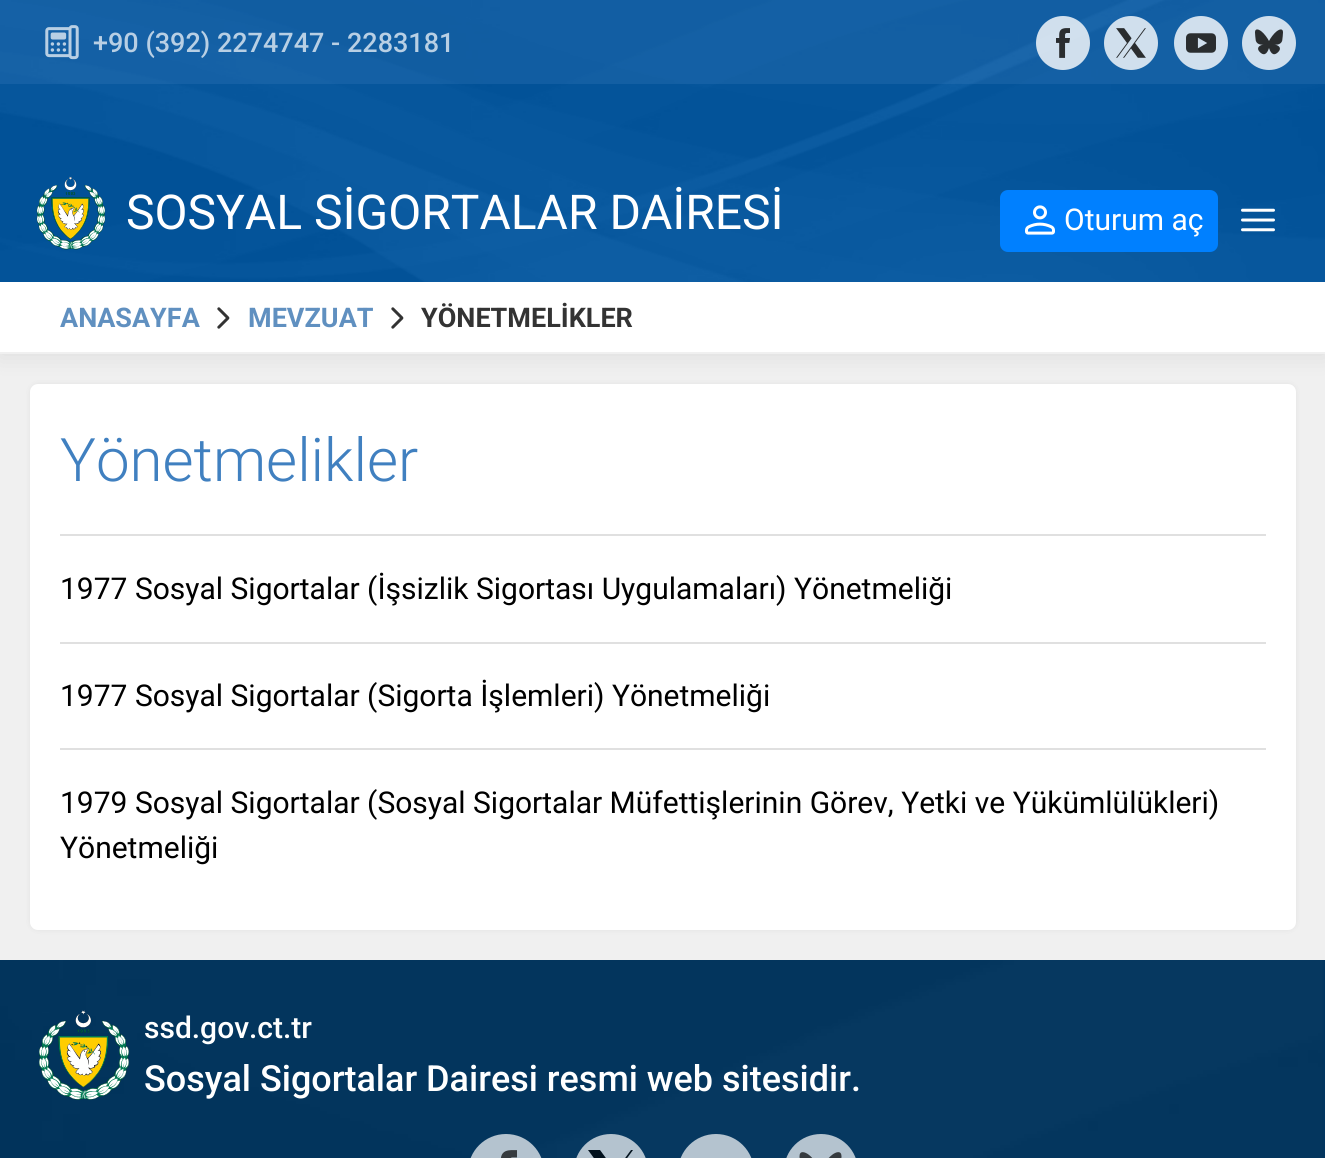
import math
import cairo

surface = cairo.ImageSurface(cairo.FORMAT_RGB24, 1325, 1158)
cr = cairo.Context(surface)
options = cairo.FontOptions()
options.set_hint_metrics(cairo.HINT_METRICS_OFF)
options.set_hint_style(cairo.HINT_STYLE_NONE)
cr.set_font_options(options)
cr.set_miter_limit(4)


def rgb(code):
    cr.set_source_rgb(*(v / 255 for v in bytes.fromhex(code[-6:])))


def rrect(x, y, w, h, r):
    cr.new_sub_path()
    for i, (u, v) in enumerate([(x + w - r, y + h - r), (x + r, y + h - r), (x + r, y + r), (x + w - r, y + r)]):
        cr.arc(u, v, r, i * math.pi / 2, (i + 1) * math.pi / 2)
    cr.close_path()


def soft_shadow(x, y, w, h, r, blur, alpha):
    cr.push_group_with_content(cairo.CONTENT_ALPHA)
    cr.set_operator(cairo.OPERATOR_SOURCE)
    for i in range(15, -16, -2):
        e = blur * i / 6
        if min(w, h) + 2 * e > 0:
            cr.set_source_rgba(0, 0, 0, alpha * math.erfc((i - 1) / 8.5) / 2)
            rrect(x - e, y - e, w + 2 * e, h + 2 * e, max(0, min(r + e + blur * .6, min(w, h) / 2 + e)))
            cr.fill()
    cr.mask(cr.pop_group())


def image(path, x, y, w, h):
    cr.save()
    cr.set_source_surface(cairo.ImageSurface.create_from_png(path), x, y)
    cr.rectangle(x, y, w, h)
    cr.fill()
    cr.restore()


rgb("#f0f0f0")
cr.paint()
rgb("#000000")
soft_shadow(30, 384, 1266, 546, 8, 3, 0.06)
rgb("#ffffff")
rrect(30, 384, 1266, 546, 8)
cr.fill()
rgb("#000000")
soft_shadow(0, 0, 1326, 354, 0, 12, 0.1)
rgb("#0055a0")
cr.rectangle(0, 0, 1325, 282)
cr.fill()
image("img/1.png", 0, 0, 1325, 282)
cr.set_source_rgba(0.251, 0.502, 0.753, 0.25)
cr.rectangle(0, 0, 1325, 84)
cr.fill()
image("img/2.png", 45, 25, 34, 35)
cr.set_source_rgba(1, 1, 1, 0.8)
cr.arc(1063, 43, 27, 0, 2 * math.pi)
cr.fill()
image("img/3.png", 1056, 28, 14, 30)
cr.arc(1131, 43, 27, 0, 2 * math.pi)
cr.fill()
image("img/4.png", 1116, 28, 30, 30)
rgb("#d0dfed")
cr.arc(1201, 43, 27, 0, 2 * math.pi)
cr.fill()
image("img/5.png", 1186, 33, 30, 20)
cr.arc(1269, 43, 27, 0, 2 * math.pi)
cr.fill()
image("img/6.png", 1255, 29, 28, 26)
image("img/7.png", 36, 176, 70, 74)
rgb("#0080ff")
rrect(1000, 190, 218, 62, 8)
cr.fill()
image("img/8.png", 1025, 205, 30, 30)
image("img/9.png", 1241, 208, 34, 24)
rgb("#ffffff")
cr.rectangle(0, 282, 1325, 70)
cr.fill()
rgb("#f0f0f0")
cr.rectangle(0, 352, 1325, 2)
cr.fill()
image("img/10.png", 217, 307, 13, 22)
image("img/10.png", 391, 307, 13, 22)
for x, y, w, h, color in [
    (60, 534, 1206, 2, "#e0e0e0"),
    (60, 642, 1206, 2, "#e0e0e0"),
    (60, 748, 1206, 2, "#e0e0e0"),
    (0, 960, 1325, 198, "#003560"),
]:
    rgb(color)
    cr.rectangle(x, y, w, h)
    cr.fill()
image("img/11.png", 0, 960, 1324, 198)
image("img/12.png", 39, 1010, 90, 90)
cr.set_source_rgba(1, 1, 1, 0.7)
cr.new_path()
cr.move_to(506, 1134)
cr.curve_to(527, 1134, 544, 1151, 544, 1172)
cr.line_to(544, 1158)
cr.line_to(468, 1158)
cr.line_to(468, 1172)
cr.curve_to(468, 1151, 485, 1134, 506, 1134)
cr.close_path()
cr.fill()
image("img/13.png", 501, 1150, 16, 8)
rgb("#b4c3cf")
cr.new_path()
cr.move_to(611, 1134)
cr.curve_to(631.5, 1134, 648, 1150.5, 648, 1171)
cr.line_to(648, 1158)
cr.line_to(574, 1158)
cr.line_to(574, 1171)
cr.curve_to(574, 1150.5, 590.5, 1134, 611, 1134)
cr.close_path()
cr.fill()
rgb("#02111d")
cr.set_fill_rule(cairo.FILL_RULE_EVEN_ODD)
cr.new_path()
cr.move_to(611, 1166)
cr.line_to(590, 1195)
cr.line_to(588, 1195)
cr.line_to(604, 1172)
cr.line_to(588, 1150)
cr.line_to(600, 1150)
cr.line_to(611, 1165)
cr.close_path()
cr.move_to(617, 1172)
cr.line_to(633, 1150)
cr.line_to(631, 1150)
cr.line_to(598, 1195)
cr.line_to(600, 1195)
cr.line_to(611, 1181)
cr.line_to(621, 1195)
cr.line_to(633, 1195)
cr.close_path()
cr.fill()
rgb("#b4c3cf")
cr.new_path()
cr.move_to(716, 1134)
cr.curve_to(737, 1134, 754, 1151, 754, 1172)
cr.line_to(754, 1158)
cr.line_to(678, 1158)
cr.line_to(678, 1172)
cr.curve_to(678, 1151, 695, 1134, 716, 1134)
cr.close_path()
cr.fill()
cr.new_path()
cr.move_to(821, 1134)
cr.curve_to(841.5, 1134, 858, 1150.5, 858, 1171)
cr.line_to(858, 1158)
cr.line_to(784, 1158)
cr.line_to(784, 1171)
cr.curve_to(784, 1150.5, 800.5, 1134, 821, 1134)
cr.close_path()
cr.fill()
image("img/14.png", 799, 1152, 43, 6)
cr.select_font_face("Roboto Medium")
cr.set_font_size(27)
rgb("#b8cfe4")
cr.move_to(93, 52)
cr.show_text("+90 (392) 2274747 - 2283181")
cr.select_font_face("Roboto")
cr.set_font_size(48)
rgb("#ffffff")
cr.move_to(126, 229)
cr.show_text("SOSYAL SİGORTALAR DAİRESİ")
cr.set_font_size(30)
cr.move_to(1064, 230)
cr.show_text("Oturum aç")
cr.select_font_face("Roboto", cairo.FONT_SLANT_NORMAL, cairo.FONT_WEIGHT_BOLD)
cr.set_font_size(27)
rgb("#6090c0")
cr.move_to(60, 327)
cr.show_text("ANASAYFA")
cr.move_to(248, 327)
cr.show_text("MEVZUAT")
rgb("#333333")
cr.move_to(421, 327)
cr.show_text("YÖNETMELİKLER")
cr.select_font_face("Roboto Light")
cr.set_font_size(60)
rgb("#4080c0")
cr.move_to(60, 481)
cr.show_text("Yönetmelikler")
cr.select_font_face("Roboto")
cr.set_font_size(30)
rgb("#000000")
for x, y, s in [
    (60, 599, "1977 Sosyal Sigortalar (İşsizlik Sigortası Uygulamaları) Yönetmeliği"),
    (60, 706, "1977 Sosyal Sigortalar (Sigorta İşlemleri) Yönetmeliği"),
    (60, 813, "1979 Sosyal Sigortalar (Sosyal Sigortalar Müfettişlerinin Görev, Yetki ve Yükümlülükleri)"),
    (60, 858, "Yönetmeliği"),
]:
    cr.move_to(x, y)
    cr.show_text(s)
cr.select_font_face("Roboto Medium")
rgb("#ffffff")
cr.move_to(144, 1038)
cr.show_text("ssd.gov.ct.tr")
cr.set_font_size(36)
cr.move_to(144, 1091)
cr.show_text("Sosyal Sigortalar Dairesi resmi web sitesidir.")
surface.write_to_png("page.png")
